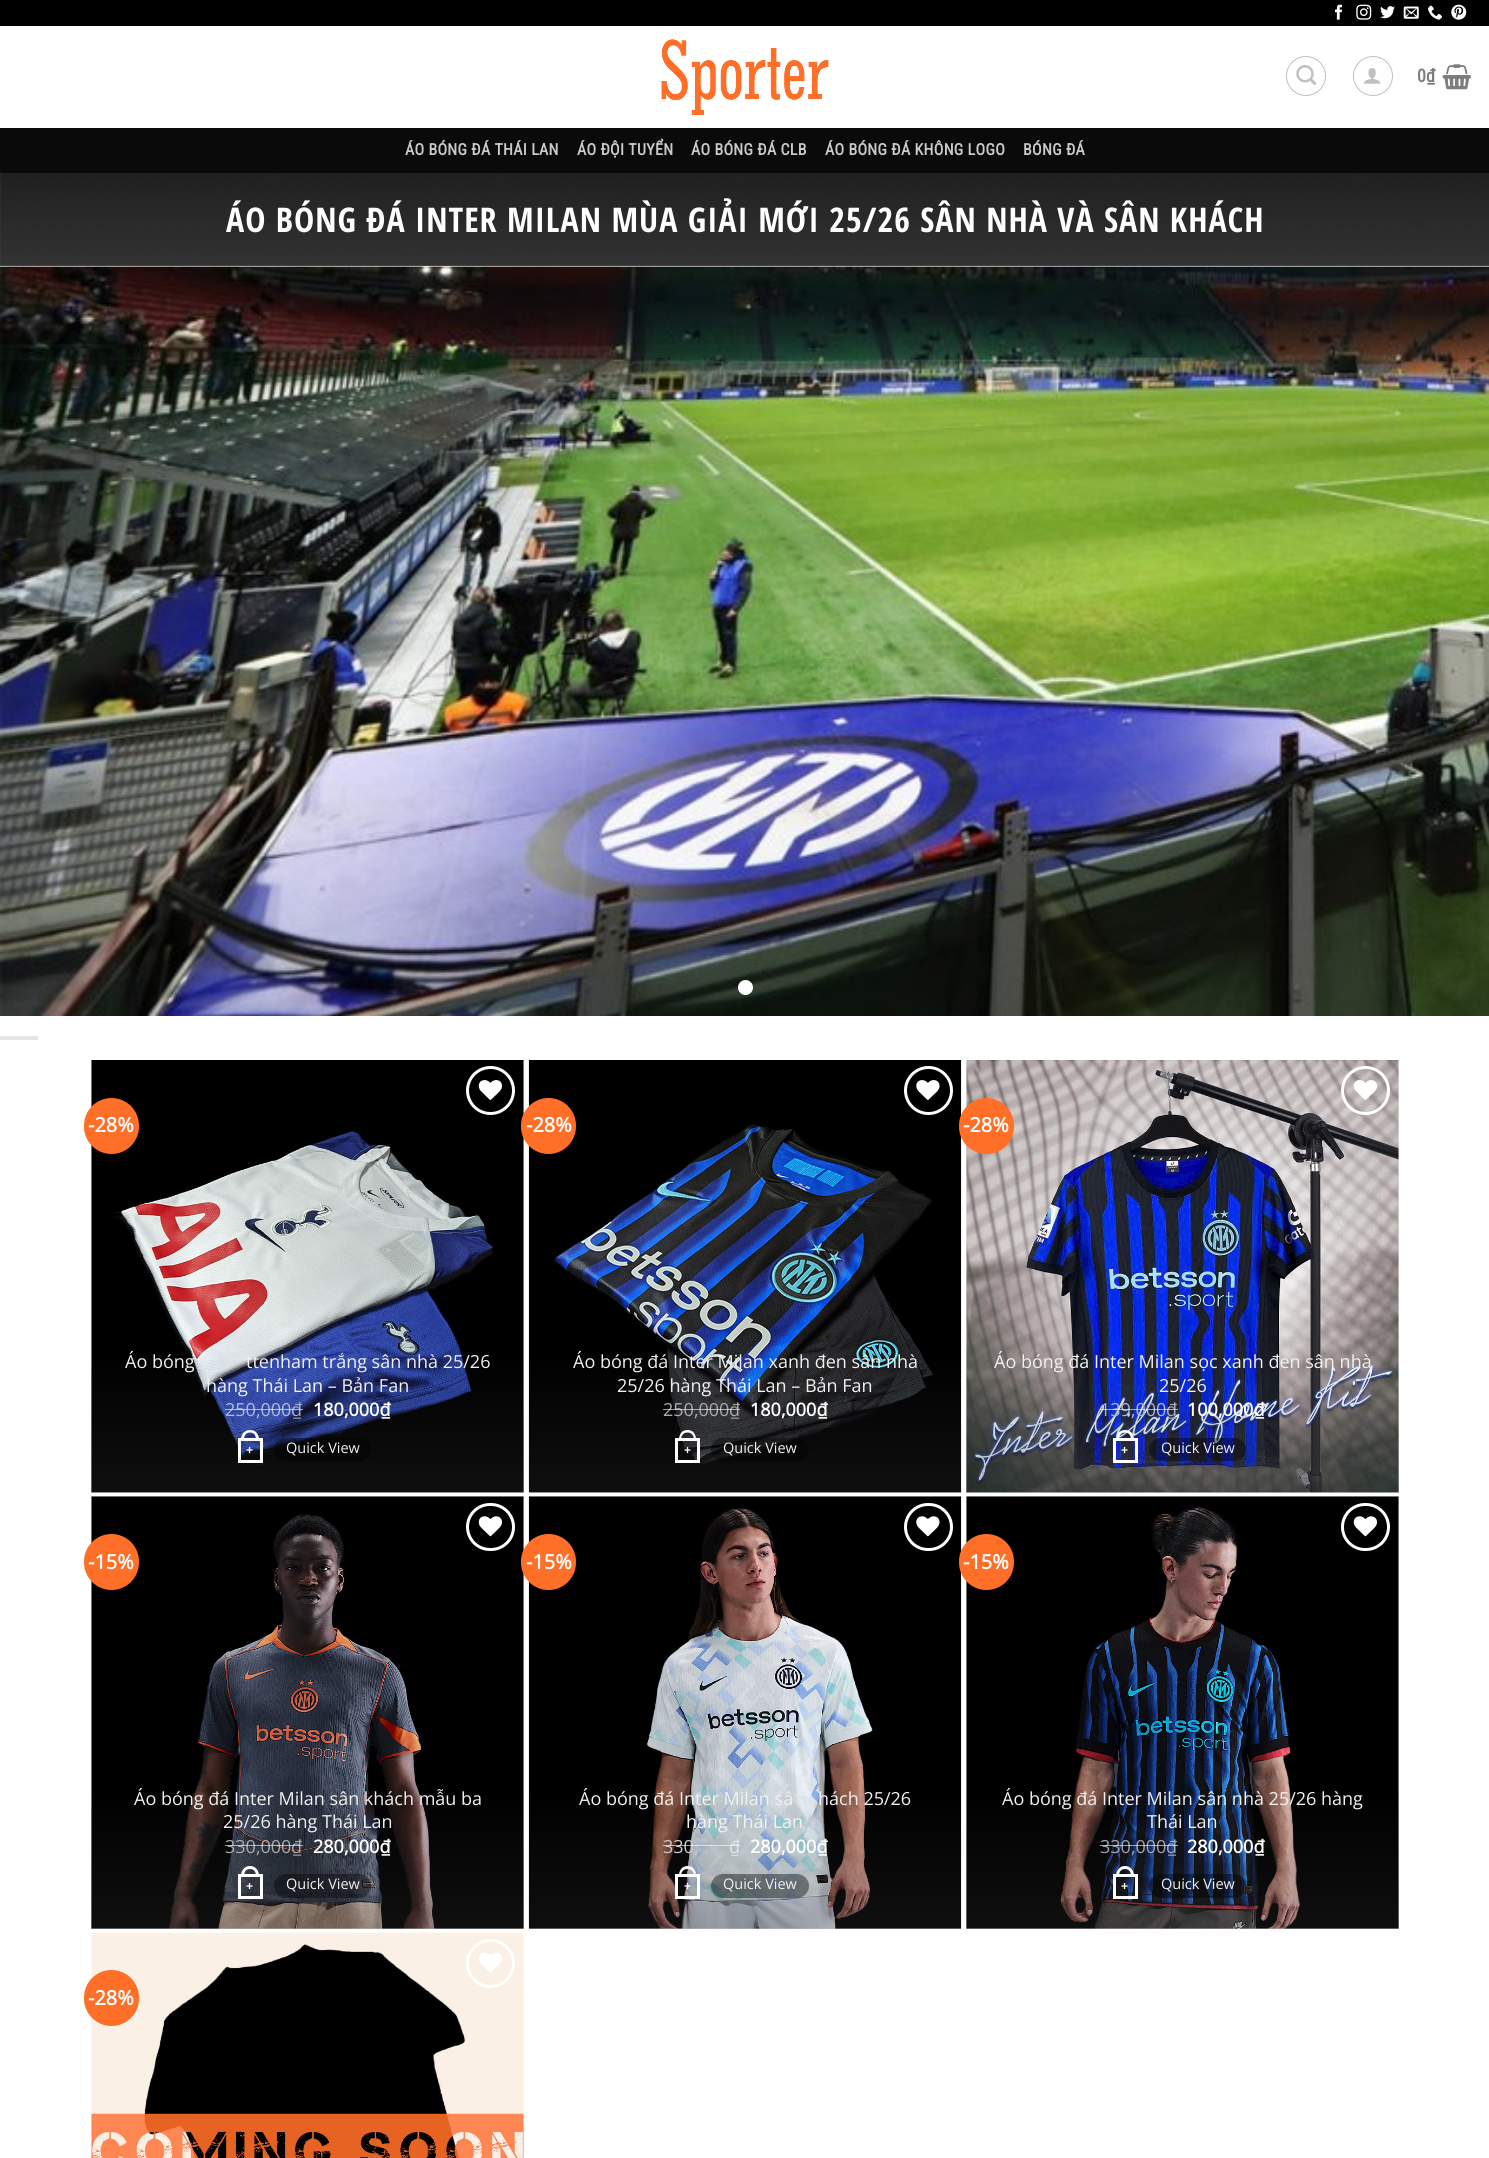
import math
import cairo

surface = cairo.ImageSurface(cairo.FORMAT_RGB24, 1489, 2158)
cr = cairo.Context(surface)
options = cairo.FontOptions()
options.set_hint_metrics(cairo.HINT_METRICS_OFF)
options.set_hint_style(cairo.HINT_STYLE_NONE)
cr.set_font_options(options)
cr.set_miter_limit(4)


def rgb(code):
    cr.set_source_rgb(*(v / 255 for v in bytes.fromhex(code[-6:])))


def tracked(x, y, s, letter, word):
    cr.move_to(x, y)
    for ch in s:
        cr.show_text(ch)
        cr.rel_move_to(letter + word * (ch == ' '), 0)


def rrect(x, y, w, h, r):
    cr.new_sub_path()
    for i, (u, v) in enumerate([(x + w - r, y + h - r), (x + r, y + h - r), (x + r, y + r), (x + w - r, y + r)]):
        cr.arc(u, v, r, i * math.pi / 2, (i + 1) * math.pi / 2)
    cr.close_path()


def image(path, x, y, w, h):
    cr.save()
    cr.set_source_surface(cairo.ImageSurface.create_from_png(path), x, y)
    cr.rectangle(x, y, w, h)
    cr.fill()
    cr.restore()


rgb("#ffffff")
cr.paint()
rgb("#000000")
cr.rectangle(0, 0, 1489, 26)
cr.fill()
image("img/1.png", 1335, 4, 7, 16)
image("img/2.png", 1356, 4, 16, 16)
image("img/3.png", 1380, 6, 15, 13)
image("img/4.png", 1403, 6, 16, 13)
image("img/5.png", 1428, 5, 14, 15)
image("img/6.png", 1451, 4, 16, 16)
image("img/7.png", 661, 39, 168, 76)
cr.arc(1306, 76, 19.5, 0, 2 * math.pi)
rgb("#c0c0c0")
cr.set_line_width(1)
cr.stroke()
image("img/8.png", 1296, 65, 21, 20)
cr.arc(1373, 76, 19.5, 0, 2 * math.pi)
cr.stroke()
image("img/9.png", 1363, 68, 18, 16)
image("img/10.png", 1442, 64, 29, 26)
rgb("#0a0a0a")
cr.rectangle(0, 128, 1489, 45)
cr.fill()
image("img/11.png", 0, 173, 1489, 93)
image("img/12.png", 0, 266, 1489, 750)
rgb("#ffffff")
cr.arc(745.5, 987.5, 5.5, 0, 2 * math.pi)
cr.fill_preserve()
cr.set_line_width(4)
cr.stroke()
rgb("#e6e6e6")
cr.rectangle(0, 1036, 38, 4)
cr.fill()
image("img/13.png", 91, 1060, 433, 433)
rgb("#ff6f28")
rrect(84, 1098, 55, 56, 27.5)
cr.fill()
gradient = cairo.LinearGradient(308, 1493, 308, 1060)
gradient.add_color_stop_rgba(0, 0.196, 0.196, 0.196, 0.3)
gradient.add_color_stop_rgba(0.33, 0.196, 0.196, 0.196, 0)
cr.set_source(gradient)
cr.rectangle(91, 1360, 433, 133)
cr.fill()
cr.arc(490.5, 1090.5, 23, 0, 2 * math.pi)
rgb("#ffffff")
cr.set_line_width(3)
cr.stroke()
image("img/14.png", 478, 1080, 24, 20)
cr.rectangle(239.5, 1439.5, 22, 22)
cr.stroke()
cr.set_fill_rule(cairo.FILL_RULE_EVEN_ODD)
cr.new_path()
cr.move_to(250, 1430)
cr.curve_to(256, 1430, 259, 1434.5, 259, 1440)
cr.line_to(241, 1440)
cr.curve_to(241, 1434.5, 244, 1430, 250, 1430)
cr.close_path()
cr.move_to(250, 1432.5)
cr.curve_to(254.5, 1432.5, 256, 1436, 256, 1440)
cr.line_to(244, 1440)
cr.curve_to(244, 1436, 245.5, 1432.5, 250, 1432.5)
cr.close_path()
cr.fill()
cr.set_source_rgba(0, 0, 0, 0.4)
rrect(274, 1438, 97, 23, 11.5)
cr.fill()
image("img/15.png", 528, 1060, 434, 433)
rgb("#ff6f28")
rrect(521, 1098, 55, 56, 27.5)
cr.fill()
gradient = cairo.LinearGradient(745, 1493, 745, 1060)
gradient.add_color_stop_rgba(0, 0.196, 0.196, 0.196, 0.3)
gradient.add_color_stop_rgba(0.33, 0.196, 0.196, 0.196, 0)
cr.set_source(gradient)
cr.rectangle(529, 1360, 432, 133)
cr.fill()
cr.arc(928.5, 1090.5, 23, 0, 2 * math.pi)
rgb("#ffffff")
cr.stroke()
image("img/16.png", 916, 1080, 24, 20)
cr.rectangle(676.5, 1439.5, 22, 22)
cr.stroke()
cr.new_path()
cr.move_to(687.5, 1430)
cr.curve_to(693.5, 1430, 696, 1434.5, 696, 1440)
cr.line_to(679, 1440)
cr.curve_to(679, 1434.5, 681.5, 1430, 687.5, 1430)
cr.close_path()
cr.move_to(687.5, 1432.5)
cr.curve_to(692, 1432.5, 694, 1436, 694, 1440)
cr.line_to(681, 1440)
cr.curve_to(681, 1436, 683, 1432.5, 687.5, 1432.5)
cr.close_path()
cr.fill()
cr.set_source_rgba(0, 0, 0, 0.4)
rrect(711, 1438, 98, 23, 11.5)
cr.fill()
image("img/17.png", 966, 1060, 433, 433)
rgb("#ff6f28")
rrect(959, 1098, 55, 56, 27.5)
cr.fill()
gradient = cairo.LinearGradient(1183, 1493, 1183, 1060)
gradient.add_color_stop_rgba(0, 0.196, 0.196, 0.196, 0.3)
gradient.add_color_stop_rgba(0.33, 0.196, 0.196, 0.196, 0)
cr.set_source(gradient)
cr.rectangle(966, 1360, 433, 133)
cr.fill()
cr.arc(1365.5, 1090.5, 23, 0, 2 * math.pi)
rgb("#ffffff")
cr.stroke()
image("img/18.png", 1353, 1080, 24, 20)
cr.rectangle(1114.5, 1439.5, 22, 22)
cr.stroke()
cr.new_path()
cr.move_to(1125, 1430)
cr.curve_to(1131, 1430, 1134, 1434.5, 1134, 1440)
cr.line_to(1116, 1440)
cr.curve_to(1116, 1434.5, 1119, 1430, 1125, 1430)
cr.close_path()
cr.move_to(1125, 1432.5)
cr.curve_to(1129.5, 1432.5, 1131, 1436, 1131, 1440)
cr.line_to(1119, 1440)
cr.curve_to(1119, 1436, 1120.5, 1432.5, 1125, 1432.5)
cr.close_path()
cr.fill()
cr.set_source_rgba(0, 0, 0, 0.4)
rrect(1149, 1438, 97, 23, 11.5)
cr.fill()
image("img/19.png", 91, 1496, 433, 433)
rgb("#ff6f28")
rrect(84, 1534, 55, 56, 27.5)
cr.fill()
gradient = cairo.LinearGradient(308, 1929, 308, 1496)
gradient.add_color_stop_rgba(0, 0.196, 0.196, 0.196, 0.3)
gradient.add_color_stop_rgba(0.33, 0.196, 0.196, 0.196, 0)
cr.set_source(gradient)
cr.rectangle(91, 1796, 433, 133)
cr.fill()
rrect(467.5, 1504.5, 46, 45, 22.5)
rgb("#ffffff")
cr.stroke()
image("img/20.png", 478, 1516, 24, 21)
cr.rectangle(239.5, 1875.5, 22, 22)
cr.stroke()
cr.new_path()
cr.move_to(250, 1866)
cr.curve_to(256, 1866, 259, 1871, 259, 1876)
cr.line_to(241, 1876)
cr.curve_to(241, 1871, 244, 1866, 250, 1866)
cr.close_path()
cr.move_to(250, 1869)
cr.curve_to(254.5, 1869, 256, 1872.5, 256, 1876)
cr.line_to(244, 1876)
cr.curve_to(244, 1872.5, 245.5, 1869, 250, 1869)
cr.close_path()
cr.fill()
cr.set_source_rgba(0, 0, 0, 0.4)
rrect(274, 1874, 97, 24, 12)
cr.fill()
image("img/21.png", 528, 1496, 434, 433)
rgb("#ff6f28")
rrect(521, 1534, 55, 56, 27.5)
cr.fill()
gradient = cairo.LinearGradient(745, 1929, 745, 1496)
gradient.add_color_stop_rgba(0, 0.196, 0.196, 0.196, 0.3)
gradient.add_color_stop_rgba(0.33, 0.196, 0.196, 0.196, 0)
cr.set_source(gradient)
cr.rectangle(529, 1796, 432, 133)
cr.fill()
rrect(905.5, 1504.5, 46, 45, 22.5)
rgb("#ffffff")
cr.stroke()
image("img/22.png", 916, 1516, 24, 21)
cr.rectangle(676.5, 1875.5, 22, 22)
cr.stroke()
cr.new_path()
cr.move_to(687.5, 1866)
cr.curve_to(693.5, 1866, 696, 1871, 696, 1876)
cr.line_to(679, 1876)
cr.curve_to(679, 1871, 681.5, 1866, 687.5, 1866)
cr.close_path()
cr.move_to(687.5, 1869)
cr.curve_to(692, 1869, 694, 1872.5, 694, 1876)
cr.line_to(681, 1876)
cr.curve_to(681, 1872.5, 683, 1869, 687.5, 1869)
cr.close_path()
cr.fill()
cr.set_source_rgba(0, 0, 0, 0.4)
rrect(711, 1874, 98, 24, 12)
cr.fill()
image("img/23.png", 966, 1496, 433, 433)
rgb("#ff6f28")
rrect(959, 1534, 55, 56, 27.5)
cr.fill()
gradient = cairo.LinearGradient(1183, 1929, 1183, 1496)
gradient.add_color_stop_rgba(0, 0.196, 0.196, 0.196, 0.3)
gradient.add_color_stop_rgba(0.33, 0.196, 0.196, 0.196, 0)
cr.set_source(gradient)
cr.rectangle(966, 1796, 433, 133)
cr.fill()
rrect(1342.5, 1504.5, 46, 45, 22.5)
rgb("#ffffff")
cr.stroke()
image("img/20.png", 1353, 1516, 24, 21)
cr.rectangle(1114.5, 1875.5, 22, 22)
cr.stroke()
cr.new_path()
cr.move_to(1125, 1866)
cr.curve_to(1131, 1866, 1134, 1871, 1134, 1876)
cr.line_to(1116, 1876)
cr.curve_to(1116, 1871, 1119, 1866, 1125, 1866)
cr.close_path()
cr.move_to(1125, 1869)
cr.curve_to(1129.5, 1869, 1131, 1872.5, 1131, 1876)
cr.line_to(1119, 1876)
cr.curve_to(1119, 1872.5, 1120.5, 1869, 1125, 1869)
cr.close_path()
cr.fill()
cr.set_source_rgba(0, 0, 0, 0.4)
rrect(1149, 1874, 97, 24, 12)
cr.fill()
image("img/24.png", 91, 1932, 433, 226)
cr.arc(490.5, 1963.5, 23, 0, 2 * math.pi)
rgb("#ffffff")
cr.stroke()
image("img/25.png", 478, 1952, 24, 21)
rgb("#ff6f28")
rrect(84, 1970, 55, 56, 27.5)
cr.fill()
cr.select_font_face("Roboto Condensed", cairo.FONT_SLANT_NORMAL, cairo.FONT_WEIGHT_BOLD)
cr.set_font_size(18)
rgb("#7d7d7d")
cr.move_to(1417, 82)
cr.show_text("0₫")
cr.set_font_size(16)
rgb("#cacaca")
for x, y, s in [
    (405, 155, "ÁO BÓNG ĐÁ THÁI LAN"),
    (577, 155, "ÁO ĐỘI TUYỂN"),
    (691, 155, "ÁO BÓNG ĐÁ CLB"),
    (825, 155, "ÁO BÓNG ĐÁ KHÔNG LOGO"),
    (1023, 155, "BÓNG ĐÁ"),
]:
    tracked(x, y, s, 0.3, 0)
cr.select_font_face("Open Sans Condensed", cairo.FONT_SLANT_NORMAL, cairo.FONT_WEIGHT_BOLD)
cr.set_font_size(34)
rgb("#ffffff")
tracked(226, 232, "ÁO BÓNG ĐÁ INTER MILAN MÙA GIẢI MỚI 25/26 SÂN NHÀ VÀ SÂN KHÁCH", 1, 0)
cr.select_font_face("Open Sans", cairo.FONT_SLANT_NORMAL, cairo.FONT_WEIGHT_BOLD)
cr.set_font_size(20)
cr.move_to(88, 1132)
cr.show_text("-28%")
cr.select_font_face("Open Sans")
cr.set_font_size(18)
rgb("#f1f1f1")
for x, y, s in [
    (125, 1368, "Áo bóng"),
    (246, 1368, "ttenham trắng sân nhà 25/26"),
    (206, 1392, "hàng Thái Lan – Bản Fan"),
]:
    cr.move_to(x, y)
    cr.show_text(s)
rgb("#aeb7dc")
cr.move_to(225, 1416)
cr.show_text("250,000")
cr.set_source_rgba(1, 1, 1, 0.6)
cr.rectangle(225, 1409, 66, 1)
cr.fill()
rgb("#a8adc7")
cr.move_to(291, 1416)
cr.show_text("₫")
cr.set_source_rgba(1, 1, 1, 0.6)
cr.rectangle(291, 1409, 12, 1)
cr.fill()
cr.select_font_face("Open Sans", cairo.FONT_SLANT_NORMAL, cairo.FONT_WEIGHT_BOLD)
rgb("#ffffff")
cr.move_to(313, 1416)
cr.show_text("180,000₫")
cr.select_font_face("Liberation Sans", cairo.FONT_SLANT_NORMAL, cairo.FONT_WEIGHT_BOLD)
cr.set_font_size(12)
cr.move_to(246, 1454)
cr.show_text("+")
cr.select_font_face("Open Sans")
cr.set_font_size(14.5)
rgb("#f1f1f1")
cr.move_to(286, 1453)
cr.show_text("Quick View")
cr.select_font_face("Open Sans", cairo.FONT_SLANT_NORMAL, cairo.FONT_WEIGHT_BOLD)
cr.set_font_size(20)
rgb("#ffffff")
cr.move_to(526, 1132)
cr.show_text("-28%")
cr.select_font_face("Open Sans")
cr.set_font_size(18)
rgb("#f1f1f1")
cr.move_to(573, 1368)
cr.show_text("Áo bóng đá Inter Milan xanh đen sân nhà")
cr.move_to(617, 1392)
cr.show_text("25/26 hàng Thái Lan – Bản Fan")
rgb("#a9aaab")
cr.move_to(663, 1416)
cr.show_text("250,000")
cr.set_source_rgba(1, 1, 1, 0.6)
cr.rectangle(663, 1409, 66, 1)
cr.fill()
rgb("#a9aaab")
cr.move_to(729, 1416)
cr.show_text("₫")
cr.set_source_rgba(1, 1, 1, 0.6)
cr.rectangle(729, 1409, 11, 1)
cr.fill()
cr.select_font_face("Open Sans", cairo.FONT_SLANT_NORMAL, cairo.FONT_WEIGHT_BOLD)
rgb("#ffffff")
cr.move_to(750, 1416)
cr.show_text("180,000₫")
cr.select_font_face("Liberation Sans", cairo.FONT_SLANT_NORMAL, cairo.FONT_WEIGHT_BOLD)
cr.set_font_size(12)
cr.move_to(684, 1454)
cr.show_text("+")
cr.select_font_face("Open Sans")
cr.set_font_size(14.5)
rgb("#f1f1f1")
cr.move_to(723, 1453)
cr.show_text("Quick View")
cr.select_font_face("Open Sans", cairo.FONT_SLANT_NORMAL, cairo.FONT_WEIGHT_BOLD)
cr.set_font_size(20)
rgb("#ffffff")
cr.move_to(963, 1132)
cr.show_text("-28%")
cr.select_font_face("Open Sans")
cr.set_font_size(18)
rgb("#f1f1f1")
cr.move_to(994, 1368)
cr.show_text("Áo bóng đá Inter Milan sọc xanh đen sân nhà")
cr.move_to(1159, 1392)
cr.show_text("25/26")
rgb("#adb4d3")
cr.move_to(1100, 1416)
cr.show_text("139,000")
cr.set_source_rgba(1, 1, 1, 0.6)
cr.rectangle(1100, 1409, 66, 1)
cr.fill()
rgb("#abaeb7")
cr.move_to(1166, 1416)
cr.show_text("₫")
cr.set_source_rgba(1, 1, 1, 0.6)
cr.rectangle(1166, 1409, 12, 1)
cr.fill()
cr.select_font_face("Open Sans", cairo.FONT_SLANT_NORMAL, cairo.FONT_WEIGHT_BOLD)
rgb("#ffffff")
cr.move_to(1187, 1416)
cr.show_text("100,000₫")
cr.select_font_face("Liberation Sans", cairo.FONT_SLANT_NORMAL, cairo.FONT_WEIGHT_BOLD)
cr.set_font_size(12)
cr.move_to(1121, 1454)
cr.show_text("+")
cr.select_font_face("Open Sans")
cr.set_font_size(14.5)
rgb("#f1f1f1")
cr.move_to(1161, 1453)
cr.show_text("Quick View")
cr.select_font_face("Open Sans", cairo.FONT_SLANT_NORMAL, cairo.FONT_WEIGHT_BOLD)
cr.set_font_size(20)
rgb("#ffffff")
cr.move_to(88, 1569)
cr.show_text("-15%")
cr.select_font_face("Open Sans")
cr.set_font_size(18)
rgb("#f1f1f1")
cr.move_to(134, 1805)
cr.show_text("Áo bóng đá Inter Milan sân khách mẫu ba")
cr.move_to(223, 1828)
cr.show_text("25/26 hàng Thái Lan")
rgb("#a9aaab")
cr.move_to(225, 1853)
cr.show_text("330,000")
cr.set_source_rgba(1, 1, 1, 0.6)
cr.rectangle(225, 1845, 66, 1)
cr.fill()
rgb("#a9aaab")
cr.move_to(291, 1853)
cr.show_text("₫")
cr.set_source_rgba(1, 1, 1, 0.6)
cr.rectangle(291, 1845, 12, 1)
cr.fill()
cr.select_font_face("Open Sans", cairo.FONT_SLANT_NORMAL, cairo.FONT_WEIGHT_BOLD)
rgb("#ffffff")
cr.move_to(313, 1853)
cr.show_text("280,000₫")
cr.select_font_face("Liberation Sans", cairo.FONT_SLANT_NORMAL, cairo.FONT_WEIGHT_BOLD)
cr.set_font_size(12)
cr.move_to(246, 1890)
cr.show_text("+")
cr.select_font_face("Open Sans")
cr.set_font_size(14.5)
rgb("#f1f1f1")
cr.move_to(286, 1889)
cr.show_text("Quick View")
cr.select_font_face("Open Sans", cairo.FONT_SLANT_NORMAL, cairo.FONT_WEIGHT_BOLD)
cr.set_font_size(20)
rgb("#ffffff")
cr.move_to(526, 1569)
cr.show_text("-15%")
cr.select_font_face("Open Sans")
cr.set_font_size(18)
rgb("#f1f1f1")
for x, y, s in [
    (579, 1805, "Áo bóng đá Inter Milan sâ"),
    (818, 1805, "hách 25/26"),
    (686, 1828, "hàng Thái Lan"),
]:
    cr.move_to(x, y)
    cr.show_text(s)
rgb("#cacaca")
cr.move_to(663, 1853)
cr.show_text("330,")
cr.set_source_rgba(1, 1, 1, 0.6)
cr.rectangle(663, 1845, 66, 1)
cr.fill()
rgb("#e2e6e7")
cr.move_to(729, 1853)
cr.show_text("₫")
cr.set_source_rgba(1, 1, 1, 0.6)
cr.rectangle(729, 1845, 11, 1)
cr.fill()
cr.select_font_face("Open Sans", cairo.FONT_SLANT_NORMAL, cairo.FONT_WEIGHT_BOLD)
rgb("#ffffff")
cr.move_to(750, 1853)
cr.show_text("280,000₫")
cr.select_font_face("Liberation Sans", cairo.FONT_SLANT_NORMAL, cairo.FONT_WEIGHT_BOLD)
cr.set_font_size(12)
cr.move_to(684, 1890)
cr.show_text("+")
cr.select_font_face("Open Sans")
cr.set_font_size(14.5)
rgb("#f1f1f1")
cr.move_to(723, 1889)
cr.show_text("Quick View")
cr.select_font_face("Open Sans", cairo.FONT_SLANT_NORMAL, cairo.FONT_WEIGHT_BOLD)
cr.set_font_size(20)
rgb("#ffffff")
cr.move_to(963, 1569)
cr.show_text("-15%")
cr.select_font_face("Open Sans")
cr.set_font_size(18)
rgb("#f1f1f1")
cr.move_to(1002, 1805)
cr.show_text("Áo bóng đá Inter Milan sân nhà 25/26 hàng")
cr.move_to(1147, 1828)
cr.show_text("Thái Lan")
rgb("#a0a3aa")
cr.move_to(1100, 1853)
cr.show_text("330,000")
cr.set_source_rgba(1, 1, 1, 0.6)
cr.rectangle(1100, 1845, 66, 1)
cr.fill()
rgb("#a2abbc")
cr.move_to(1166, 1853)
cr.show_text("₫")
cr.set_source_rgba(1, 1, 1, 0.6)
cr.rectangle(1166, 1845, 12, 1)
cr.fill()
cr.select_font_face("Open Sans", cairo.FONT_SLANT_NORMAL, cairo.FONT_WEIGHT_BOLD)
rgb("#ffffff")
cr.move_to(1187, 1853)
cr.show_text("280,000₫")
cr.select_font_face("Liberation Sans", cairo.FONT_SLANT_NORMAL, cairo.FONT_WEIGHT_BOLD)
cr.set_font_size(12)
cr.move_to(1121, 1890)
cr.show_text("+")
cr.select_font_face("Open Sans")
cr.set_font_size(14.5)
rgb("#f1f1f1")
cr.move_to(1161, 1889)
cr.show_text("Quick View")
cr.select_font_face("Open Sans", cairo.FONT_SLANT_NORMAL, cairo.FONT_WEIGHT_BOLD)
cr.set_font_size(20)
rgb("#ffffff")
cr.move_to(88, 2005)
cr.show_text("-28%")
surface.write_to_png("page.png")
